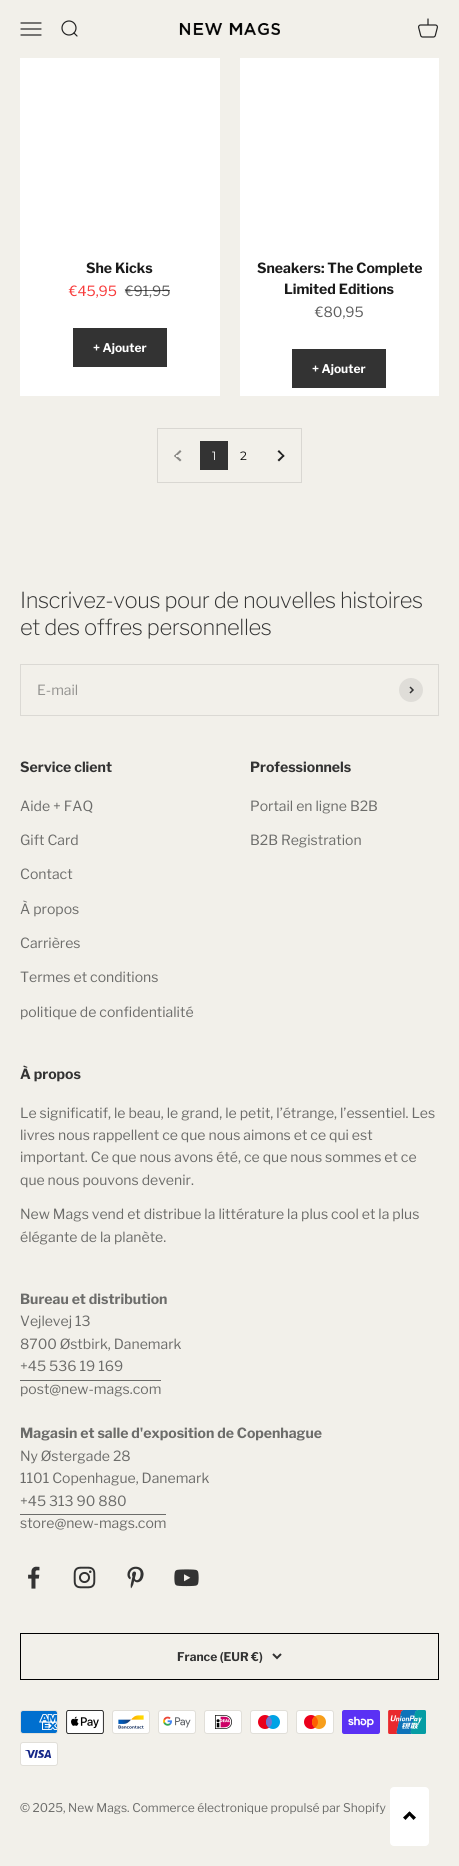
import math
import cairo

surface = cairo.ImageSurface(cairo.FORMAT_RGB24, 459, 1866)
cr = cairo.Context(surface)
options = cairo.FontOptions()
options.set_hint_metrics(cairo.HINT_METRICS_OFF)
options.set_hint_style(cairo.HINT_STYLE_NONE)
cr.set_font_options(options)
cr.set_miter_limit(4)


def rgb(code):
    cr.set_source_rgb(*(v / 255 for v in bytes.fromhex(code[-6:])))


def tracked(x, y, s, letter, word):
    cr.move_to(x, y)
    for ch in s:
        cr.show_text(ch)
        cr.rel_move_to(letter + word * (ch == ' '), 0)


def rrect(x, y, w, h, r):
    cr.new_sub_path()
    for i, (u, v) in enumerate([(x + w - r, y + h - r), (x + r, y + h - r), (x + r, y + r), (x + w - r, y + r)]):
        cr.arc(u, v, r, i * math.pi / 2, (i + 1) * math.pi / 2)
    cr.close_path()


def image(path, x, y, w, h):
    cr.save()
    cr.set_source_surface(cairo.ImageSurface.create_from_png(path), x, y)
    cr.rectangle(x, y, w, h)
    cr.fill()
    cr.restore()


rgb("#f2f0ea")
cr.paint()
image("img/1.png", 20, 22, 22, 14)
image("img/2.png", 61, 20, 17, 17)
image("img/3.png", 179, 23, 101, 12)
image("img/4.png", 418, 18, 20, 20)
for x, y, w, h, color in [
    (20, 58, 200, 338, "#ffffff"),
    (73, 328, 94, 39, "#333333"),
    (240, 58, 199, 338, "#ffffff"),
    (292, 349, 94, 39, "#333333"),
]:
    rgb(color)
    cr.rectangle(x, y, w, h)
    cr.fill()
cr.rectangle(157.5, 428.5, 144, 54)
rgb("#d9d7d2")
cr.set_line_width(1)
cr.stroke()
rgb("#8a8986")
cr.new_path()
cr.move_to(180, 461.5)
cr.line_to(174, 456)
cr.line_to(175.5, 454.5)
cr.line_to(181.5, 460)
cr.close_path()
cr.fill()
cr.new_path()
cr.move_to(175.5, 457)
cr.line_to(174, 456)
cr.line_to(180, 450)
cr.line_to(181.5, 451.5)
cr.close_path()
cr.fill()
rgb("#f2f0ea")
cr.rectangle(176, 455, 5, 2)
cr.fill()
rgb("#333333")
cr.rectangle(200, 441, 28, 29)
cr.fill()
rgb("#222222")
cr.new_path()
cr.move_to(279, 450)
cr.line_to(284.5, 456)
cr.line_to(283.5, 457)
cr.line_to(277.5, 451.5)
cr.close_path()
cr.fill()
cr.new_path()
cr.move_to(283.5, 454.5)
cr.line_to(284.5, 456)
cr.line_to(279, 461.5)
cr.line_to(277.5, 460)
cr.close_path()
cr.fill()
cr.rectangle(20.5, 664.5, 418, 51)
rgb("#dbd9d4")
cr.stroke()
rgb("#dfddd8")
cr.arc(411, 690, 12, 0, 2 * math.pi)
cr.fill()
cr.new_path()
cr.move_to(410, 693)
cr.line_to(413, 690)
cr.line_to(410, 687)
rgb("#333333")
cr.set_line_width(1.5)
cr.stroke()
rgb("#6c6c6a")
cr.rectangle(20, 1380, 141, 1)
cr.fill()
cr.rectangle(20, 1514, 146, 1)
cr.fill()
image("img/5.png", 28, 1566, 12, 23)
image("img/6.png", 73, 1566, 23, 23)
image("img/7.png", 127, 1566, 17, 23)
image("img/8.png", 174, 1569, 25, 18)
cr.rectangle(20.5, 1633.5, 418, 46)
rgb("#000000")
cr.set_line_width(1)
cr.stroke()
cr.new_path()
cr.move_to(273, 1654)
cr.line_to(277, 1658)
cr.line_to(281, 1654)
rgb("#333333")
cr.set_line_width(2)
cr.stroke()
image("img/9.png", 20, 1710, 38, 24)
image("img/10.png", 66, 1710, 38, 24)
image("img/11.png", 112, 1710, 38, 24)
image("img/12.png", 158, 1710, 38, 24)
image("img/13.png", 204, 1710, 38, 24)
image("img/14.png", 250, 1710, 38, 24)
image("img/15.png", 296, 1710, 38, 24)
image("img/16.png", 342, 1710, 38, 24)
image("img/17.png", 388, 1710, 38, 24)
image("img/18.png", 20, 1742, 38, 24)
rgb("#ffffff")
rrect(390, 1787, 39, 59, 4)
cr.fill()
rgb("#000000")
cr.new_path()
cr.move_to(405.5, 1820)
cr.line_to(403, 1817.5)
cr.line_to(409.5, 1811.5)
cr.line_to(411.5, 1813.5)
cr.close_path()
cr.fill()
cr.new_path()
cr.move_to(413.5, 1820)
cr.line_to(407.5, 1813.5)
cr.line_to(409.5, 1811.5)
cr.line_to(416, 1817.5)
cr.close_path()
cr.fill()
cr.select_font_face("Libre Franklin", cairo.FONT_SLANT_NORMAL, cairo.FONT_WEIGHT_BOLD)
cr.set_font_size(14)
rgb("#1a1a1a")
cr.move_to(86, 273)
cr.show_text("She Kicks")
cr.select_font_face("Libre Franklin")
rgb("#f83a3a")
cr.move_to(69, 296)
cr.show_text("€45,95")
rgb("#5f5f5f")
cr.move_to(125, 296)
cr.show_text("€91,95")
cr.set_source_rgba(0.102, 0.102, 0.102, 0.7)
cr.rectangle(125, 290, 45, 1)
cr.fill()
cr.select_font_face("Libre Franklin", cairo.FONT_SLANT_NORMAL, cairo.FONT_WEIGHT_BOLD)
cr.set_font_size(12)
rgb("#ffffff")
cr.move_to(93, 352)
cr.show_text("+ Ajouter")
cr.set_font_size(14)
rgb("#1a1a1a")
cr.move_to(257, 273)
cr.show_text("Sneakers: The Complete")
cr.move_to(284, 294)
cr.show_text("Limited Editions")
cr.select_font_face("Libre Franklin")
rgb("#5f5f5f")
cr.move_to(315, 317)
cr.show_text("€80,95")
cr.select_font_face("Libre Franklin", cairo.FONT_SLANT_NORMAL, cairo.FONT_WEIGHT_BOLD)
cr.set_font_size(12)
rgb("#ffffff")
cr.move_to(312, 373)
cr.show_text("+ Ajouter")
cr.select_font_face("Montserrat")
cr.move_to(212, 460)
cr.show_text("1")
rgb("#000000")
cr.move_to(240, 460)
cr.show_text("2")
cr.select_font_face("Libre Franklin ExtraLight")
cr.set_font_size(22)
rgb("#333333")
tracked(20, 608, "Inscrivez-vous pour de nouvelles histoires", -0.45, 0)
tracked(20, 635, "et des offres personnelles", -0.45, 0)
cr.select_font_face("Libre Franklin")
cr.set_font_size(14)
rgb("#93928f")
cr.move_to(37, 695)
cr.show_text("E-mail")
cr.select_font_face("Libre Franklin", cairo.FONT_SLANT_NORMAL, cairo.FONT_WEIGHT_BOLD)
rgb("#333333")
cr.move_to(20, 772)
cr.show_text("Service client")
cr.select_font_face("Libre Franklin")
rgb("#6c6c6a")
for x, y, s in [
    (20, 811, "Aide + FAQ"),
    (20, 845, "Gift Card"),
    (20, 879, "Contact"),
    (20, 914, "À propos"),
    (20, 948, "Carrières"),
    (20, 982, "Termes et conditions"),
    (20, 1017, "politique de confidentialité"),
]:
    cr.move_to(x, y)
    cr.show_text(s)
cr.select_font_face("Libre Franklin", cairo.FONT_SLANT_NORMAL, cairo.FONT_WEIGHT_BOLD)
rgb("#333333")
cr.move_to(250, 772)
cr.show_text("Professionnels")
cr.select_font_face("Libre Franklin")
rgb("#6c6c6a")
cr.move_to(250, 811)
cr.show_text("Portail en ligne B2B")
cr.move_to(250, 845)
cr.show_text("B2B Registration")
cr.select_font_face("Libre Franklin", cairo.FONT_SLANT_NORMAL, cairo.FONT_WEIGHT_BOLD)
rgb("#333333")
cr.move_to(20, 1079)
cr.show_text("À propos")
cr.select_font_face("Libre Franklin")
rgb("#6c6c6a")
for x, y, s in [
    (20, 1118, "Le significatif, le beau, le grand, le petit, l’étrange, l’essentiel. Les"),
    (20, 1140, "livres nous rappellent ce que nous aimons et ce qui est"),
    (20, 1162, "important. Ce que nous avons été, ce que nous sommes et ce"),
    (20, 1185, "que nous pouvons devenir."),
    (20, 1219, "New Mags vend et distribue la littérature la plus cool et la plus"),
    (20, 1242, "élégante de la planète."),
]:
    cr.move_to(x, y)
    cr.show_text(s)
cr.select_font_face("Libre Franklin", cairo.FONT_SLANT_NORMAL, cairo.FONT_WEIGHT_BOLD)
cr.move_to(20, 1304)
cr.show_text("Bureau et distribution")
cr.select_font_face("Libre Franklin")
for x, y, s in [
    (20, 1326, "Vejlevej 13"),
    (20, 1349, "8700 Østbirk, Danemark"),
    (20, 1371, "+45 536 19 169"),
    (20, 1394, "post@new-mags.com"),
]:
    cr.move_to(x, y)
    cr.show_text(s)
cr.select_font_face("Libre Franklin", cairo.FONT_SLANT_NORMAL, cairo.FONT_WEIGHT_BOLD)
cr.move_to(20, 1438)
cr.show_text("Magasin et salle d'exposition de Copenhague")
cr.select_font_face("Libre Franklin")
for x, y, s in [
    (20, 1461, "Ny Østergade 28"),
    (20, 1483, "1101 Copenhague, Danemark"),
    (20, 1506, "+45 313 90 880"),
    (20, 1528, "store@new-mags.com"),
]:
    cr.move_to(x, y)
    cr.show_text(s)
cr.select_font_face("Libre Franklin", cairo.FONT_SLANT_NORMAL, cairo.FONT_WEIGHT_BOLD)
cr.set_font_size(12)
rgb("#333333")
cr.move_to(177, 1661)
cr.show_text("France (EUR €)")
cr.select_font_face("Libre Franklin")
rgb("#6c6c6a")
cr.move_to(20, 1812)
cr.show_text("© 2025, New Mags. Commerce électronique propulsé par Shopify")
surface.write_to_png("page.png")
